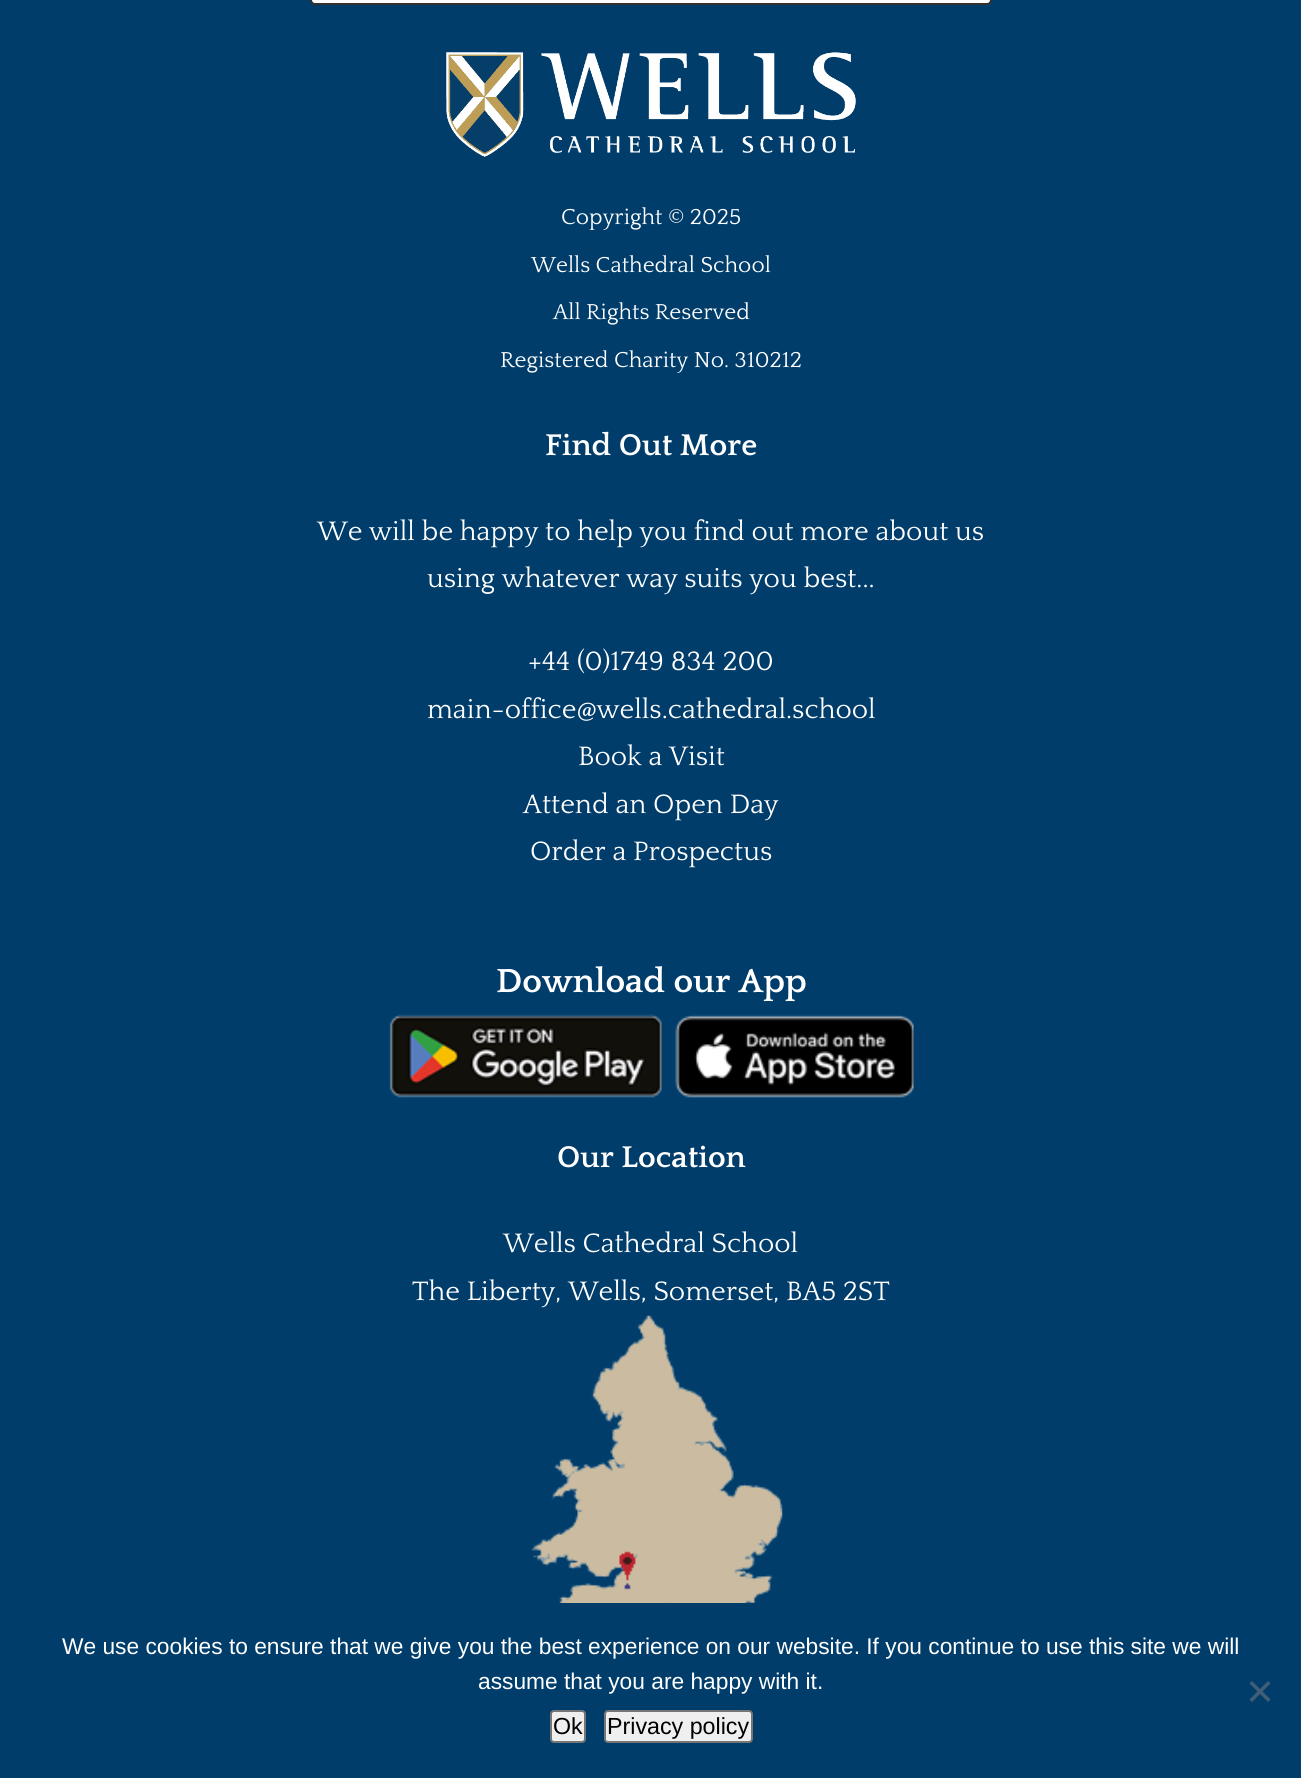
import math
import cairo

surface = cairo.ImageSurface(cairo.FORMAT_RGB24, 1301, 1778)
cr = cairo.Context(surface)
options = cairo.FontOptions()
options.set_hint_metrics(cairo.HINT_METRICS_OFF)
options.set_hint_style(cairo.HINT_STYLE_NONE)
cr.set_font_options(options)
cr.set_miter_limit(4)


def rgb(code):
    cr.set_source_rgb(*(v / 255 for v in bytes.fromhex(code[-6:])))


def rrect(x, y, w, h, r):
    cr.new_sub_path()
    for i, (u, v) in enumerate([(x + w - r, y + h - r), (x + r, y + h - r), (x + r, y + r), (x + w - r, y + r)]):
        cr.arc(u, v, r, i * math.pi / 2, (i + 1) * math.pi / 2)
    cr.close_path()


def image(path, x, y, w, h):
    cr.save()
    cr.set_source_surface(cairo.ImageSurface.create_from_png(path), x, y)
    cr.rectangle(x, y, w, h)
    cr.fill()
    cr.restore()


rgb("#003d6b")
cr.paint()
rgb("#ffffff")
rrect(311, -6, 680, 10, 4)
cr.fill_preserve()
rgb("#313131")
cr.stroke()
image("img/1.png", 446, 52, 410, 105)
image("img/2.png", 389, 1014, 525, 84)
image("img/3.png", 531, 1315, 252, 288)
rgb("#405f76")
cr.new_path()
cr.move_to(1268, 1681)
cr.line_to(1270.5, 1683.5)
cr.line_to(1252, 1702)
cr.line_to(1249.5, 1699.5)
cr.close_path()
cr.fill()
cr.new_path()
cr.move_to(1249.5, 1683.5)
cr.line_to(1252, 1681)
cr.line_to(1270.5, 1699.5)
cr.line_to(1268, 1702)
cr.close_path()
cr.fill()
rgb("#efefef")
rrect(551, 1711, 34, 31, 3)
cr.fill_preserve()
rgb("#767676")
cr.stroke()
rgb("#efefef")
rrect(605, 1711, 147, 31, 3)
cr.fill_preserve()
rgb("#767676")
cr.stroke()
cr.select_font_face("Quattrocento")
cr.set_font_size(22.75)
rgb("#ffffff")
for x, y, s in [
    (561, 224, "Copyright © 2025"),
    (531, 272, "Wells Cathedral School"),
    (553, 319, "All Rights Reserved"),
    (500, 367, "Registered Charity No. 310212"),
]:
    cr.move_to(x, y)
    cr.show_text(s)
cr.select_font_face("Quattrocento", cairo.FONT_SLANT_NORMAL, cairo.FONT_WEIGHT_BOLD)
cr.set_font_size(31.5)
cr.move_to(545, 455)
cr.show_text("Find Out More")
cr.select_font_face("Quattrocento")
cr.set_font_size(28)
for x, y, s in [
    (317, 540, "We will be happy to help you find out more about us"),
    (427, 587, "using whatever way suits you best..."),
    (528, 670, "+44 (0)1749 834 200"),
    (427, 718, "main-office@wells.cathedral.school"),
    (578, 765, "Book a Visit"),
    (523, 813, "Attend an Open Day"),
    (530, 860, "Order a Prospectus"),
]:
    cr.move_to(x, y)
    cr.show_text(s)
cr.select_font_face("Quattrocento", cairo.FONT_SLANT_NORMAL, cairo.FONT_WEIGHT_BOLD)
cr.set_font_size(35)
cr.move_to(496, 992)
cr.show_text("Download our App")
cr.set_font_size(31.5)
cr.move_to(557, 1167)
cr.show_text("Our Location")
cr.select_font_face("Quattrocento")
cr.set_font_size(28)
cr.move_to(503, 1252)
cr.show_text("Wells Cathedral School")
cr.move_to(412, 1300)
cr.show_text("The Liberty, Wells, Somerset, BA5 2ST")
cr.select_font_face("Liberation Sans")
cr.set_font_size(22.75)
cr.move_to(62, 1654)
cr.show_text("We use cookies to ensure that we give you the best experience on our website. If you continue to use this site we will")
cr.move_to(478, 1689)
cr.show_text("assume that you are happy with it.")
cr.set_font_size(23.25)
rgb("#000000")
cr.move_to(553, 1734)
cr.show_text("Ok")
cr.move_to(607, 1734)
cr.show_text("Privacy policy")
surface.write_to_png("page.png")
